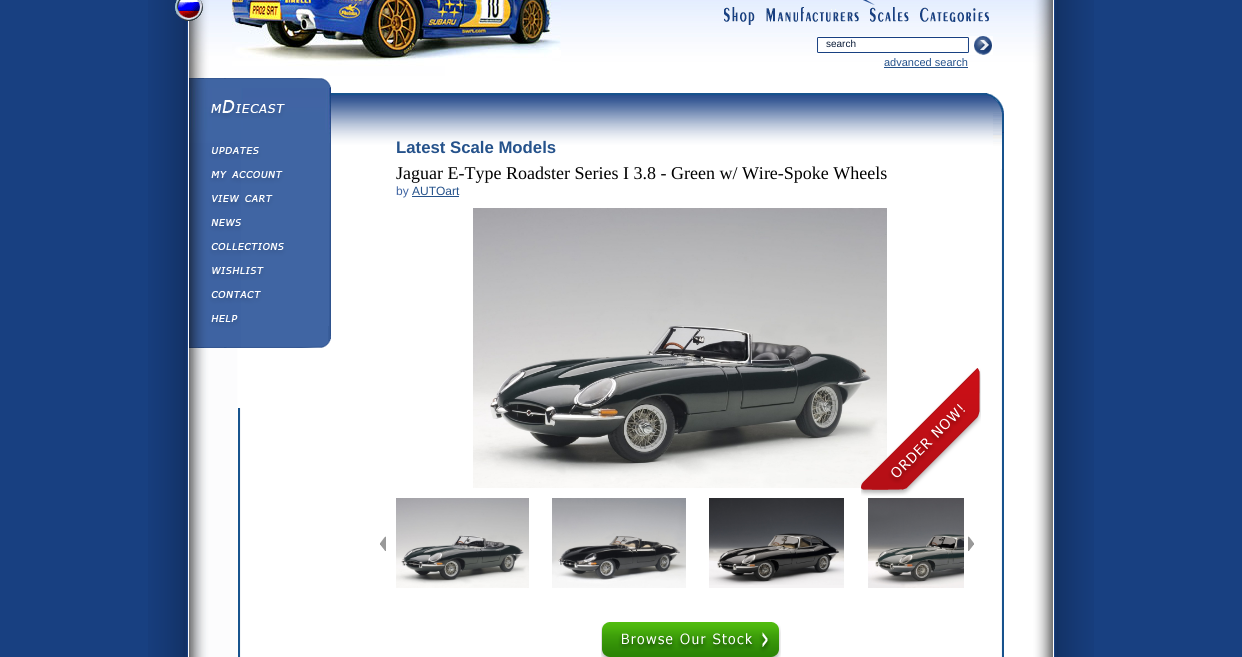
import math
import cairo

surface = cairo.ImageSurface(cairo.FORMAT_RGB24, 1242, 657)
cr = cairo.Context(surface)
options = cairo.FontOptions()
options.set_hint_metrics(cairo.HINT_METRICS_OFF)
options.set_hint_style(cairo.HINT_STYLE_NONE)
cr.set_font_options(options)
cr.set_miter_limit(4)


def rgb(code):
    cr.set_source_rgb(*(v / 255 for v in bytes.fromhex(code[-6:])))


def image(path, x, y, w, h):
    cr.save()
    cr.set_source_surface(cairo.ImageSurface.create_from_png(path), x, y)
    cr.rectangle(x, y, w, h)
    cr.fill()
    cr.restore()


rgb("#184081")
cr.paint()
image("img/1.png", 148, 0, 946, 657)
image("img/2.png", 175, 0, 878, 300)
image("img/3.png", 232, 0, 329, 66)
image("img/4.png", 863, 0, 12, 5)
image("img/5.png", 724, 7, 31, 18)
image("img/6.png", 766, 7, 93, 15)
image("img/7.png", 870, 7, 39, 15)
image("img/8.png", 920, 7, 69, 15)
image("img/9.png", 817, 36, 176, 19)
rgb("#25528b")
cr.rectangle(884, 67, 84, 1)
cr.fill()
image("img/10.png", 189, 78, 142, 330)
cr.rectangle(412, 196, 47, 1)
cr.fill()
image("img/11.png", 473, 208, 414, 280)
image("img/12.png", 861, 368, 120, 128)
image("img/13.png", 380, 536, 6, 15)
image("img/14.png", 396, 498, 133, 90)
image("img/15.png", 552, 498, 134, 90)
image("img/16.png", 709, 498, 135, 90)
image("img/17.png", 868, 498, 96, 90)
image("img/18.png", 968, 536, 6, 15)
image("img/19.png", 601, 622, 180, 35)
cr.select_font_face("Liberation Sans")
cr.set_font_size(10)
rgb("#0a1b37")
cr.move_to(826, 47)
cr.show_text("search")
cr.set_font_size(11)
rgb("#25528b")
cr.move_to(884, 66)
cr.show_text("advanced search")
cr.select_font_face("Liberation Sans", cairo.FONT_SLANT_NORMAL, cairo.FONT_WEIGHT_BOLD)
cr.set_font_size(16.75)
cr.move_to(396, 153)
cr.show_text("Latest Scale Models")
cr.select_font_face("Liberation Serif")
cr.set_font_size(18)
rgb("#000000")
cr.move_to(396, 179)
cr.show_text("Jaguar E-Type Roadster Series I 3.8 - Green w/ Wire-Spoke Wheels")
cr.select_font_face("Liberation Sans")
cr.set_font_size(12)
rgb("#4065a3")
cr.move_to(396, 195)
cr.show_text("by")
rgb("#25528b")
cr.move_to(412, 195)
cr.show_text("AUTOart")
surface.write_to_png("page.png")
